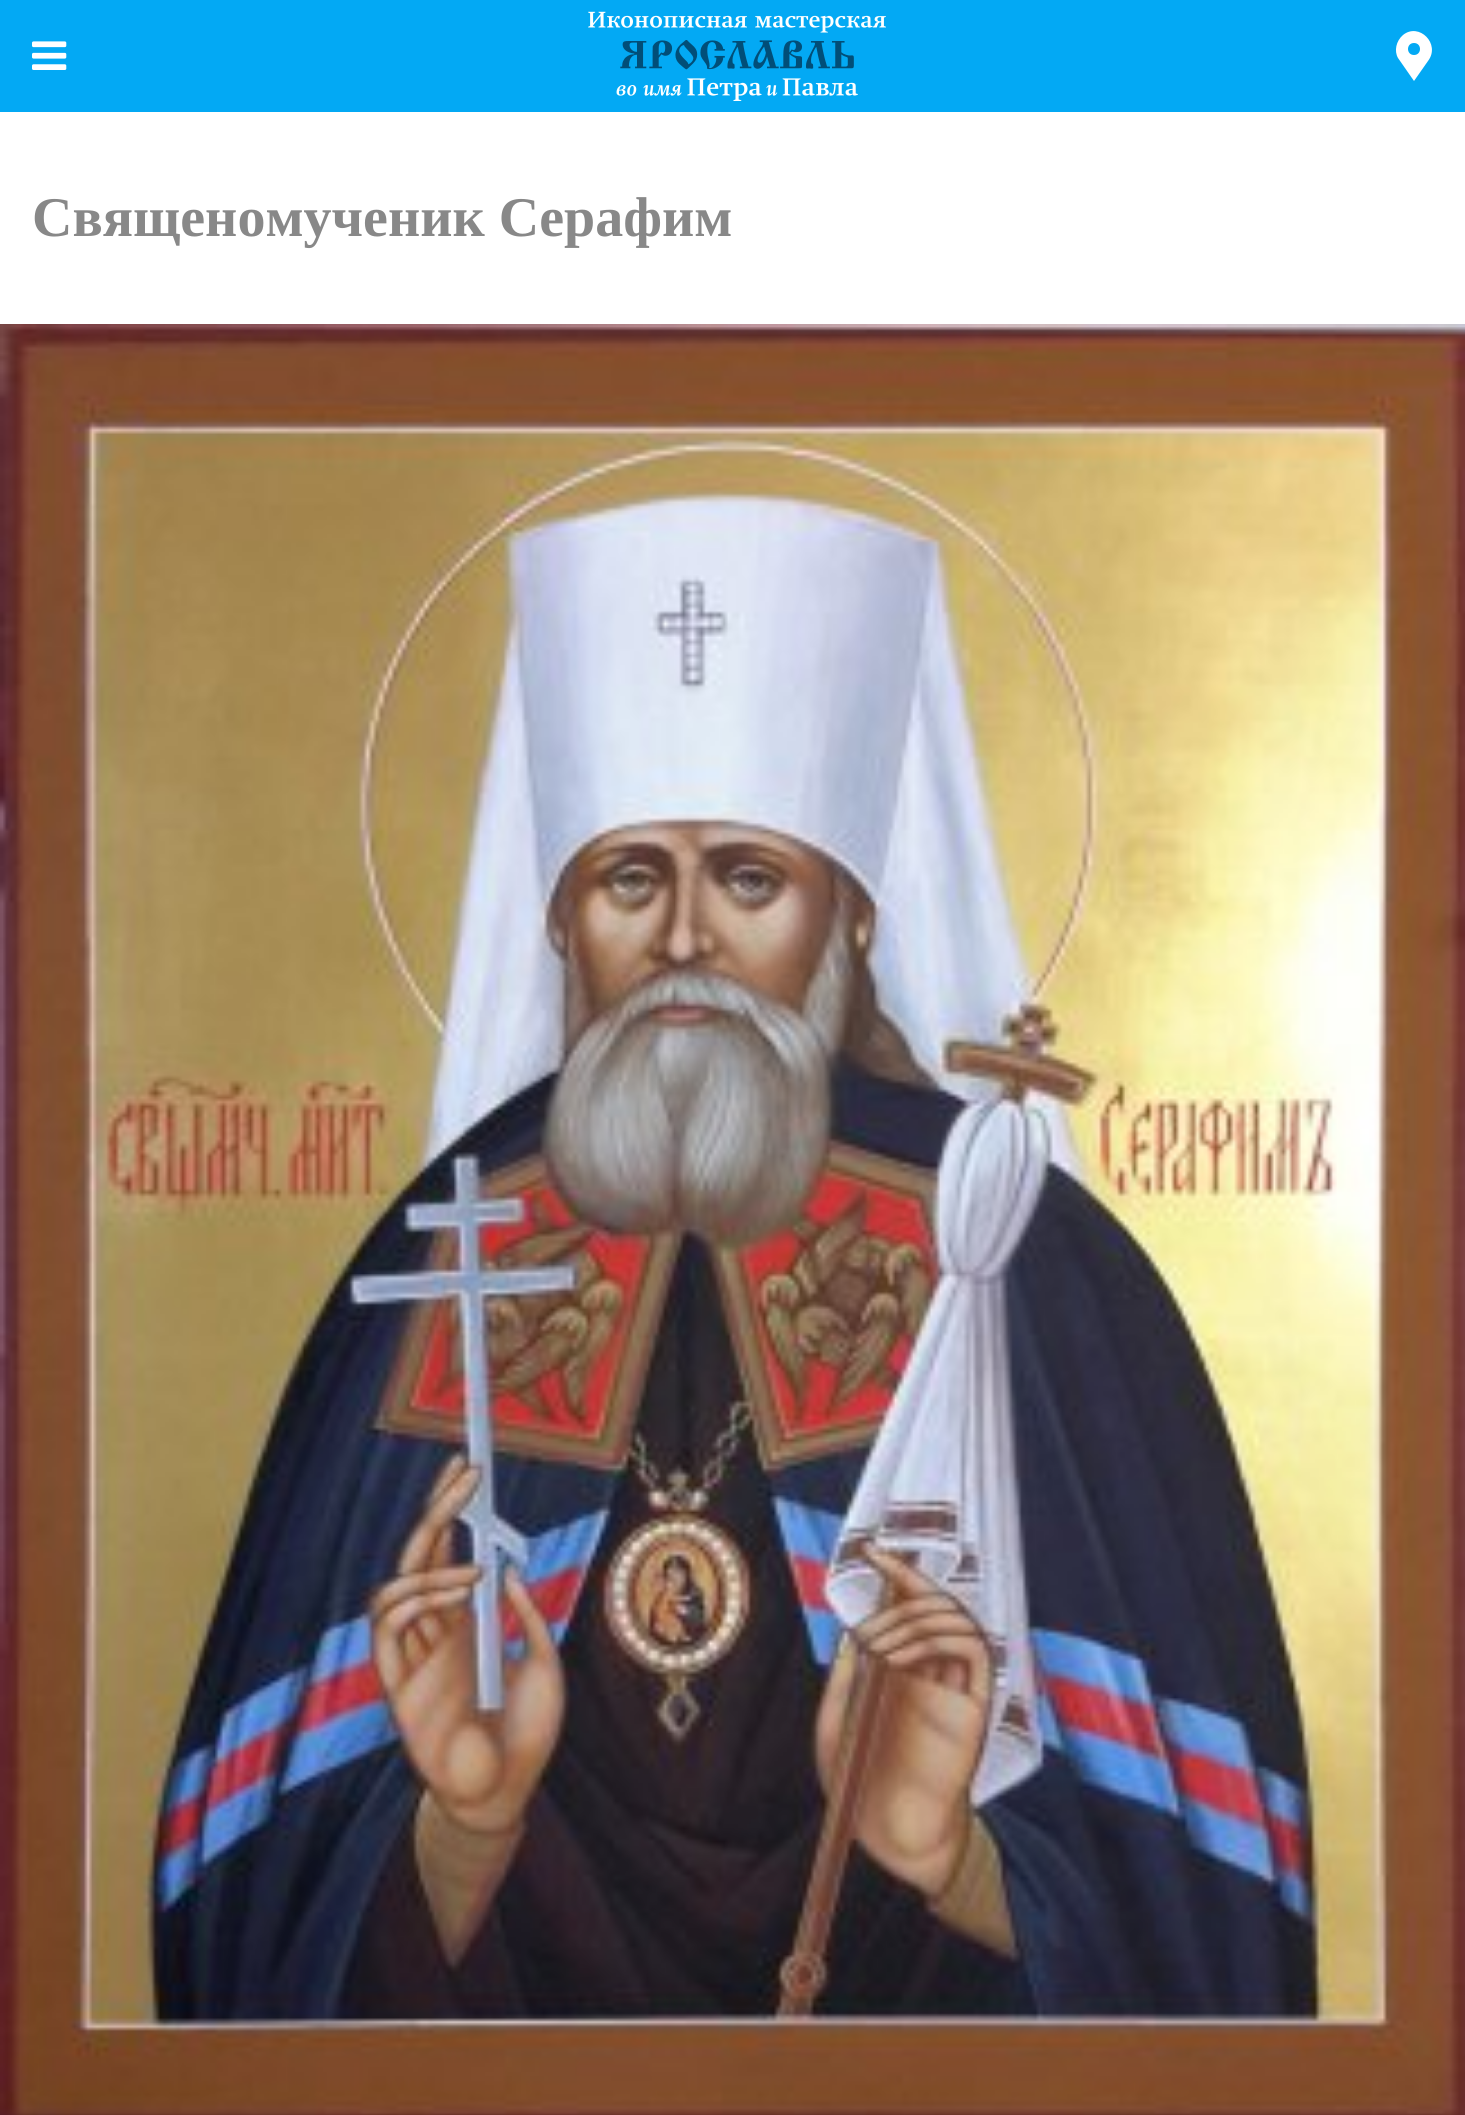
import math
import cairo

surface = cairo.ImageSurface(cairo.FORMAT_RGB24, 1465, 2115)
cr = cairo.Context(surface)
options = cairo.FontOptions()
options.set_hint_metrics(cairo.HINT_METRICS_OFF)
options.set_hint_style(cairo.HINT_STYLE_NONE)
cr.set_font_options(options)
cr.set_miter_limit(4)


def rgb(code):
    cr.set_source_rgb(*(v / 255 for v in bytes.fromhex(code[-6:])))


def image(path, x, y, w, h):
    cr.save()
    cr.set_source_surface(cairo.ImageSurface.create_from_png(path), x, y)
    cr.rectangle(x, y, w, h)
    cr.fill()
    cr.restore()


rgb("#ffffff")
cr.paint()
rgb("#03a9f4")
cr.rectangle(0, 0, 1465, 112)
cr.fill()
image("img/1.png", 32, 41, 35, 29)
image("img/2.png", 588, 11, 298, 90)
image("img/3.png", 620, 40, 234, 30)
rgb("#ffffff")
cr.new_path()
cr.move_to(1428, 61)
cr.line_to(1414, 81)
cr.line_to(1398, 58)
cr.curve_to(1394, 51, 1396, 41, 1403, 35)
cr.curve_to(1419, 22, 1441, 44, 1428, 61)
cr.close_path()
cr.move_to(1414, 43)
cr.curve_to(1406, 43, 1406, 55, 1414, 55)
cr.curve_to(1422, 55, 1422, 43, 1414, 43)
cr.close_path()
cr.fill()
image("img/4.png", 0, 324, 1465, 1791)
cr.select_font_face("Liberation Serif", cairo.FONT_SLANT_NORMAL, cairo.FONT_WEIGHT_BOLD)
cr.set_font_size(56)
rgb("#888888")
cr.move_to(32, 236)
cr.show_text("Священомученик Серафим")
surface.write_to_png("page.png")
